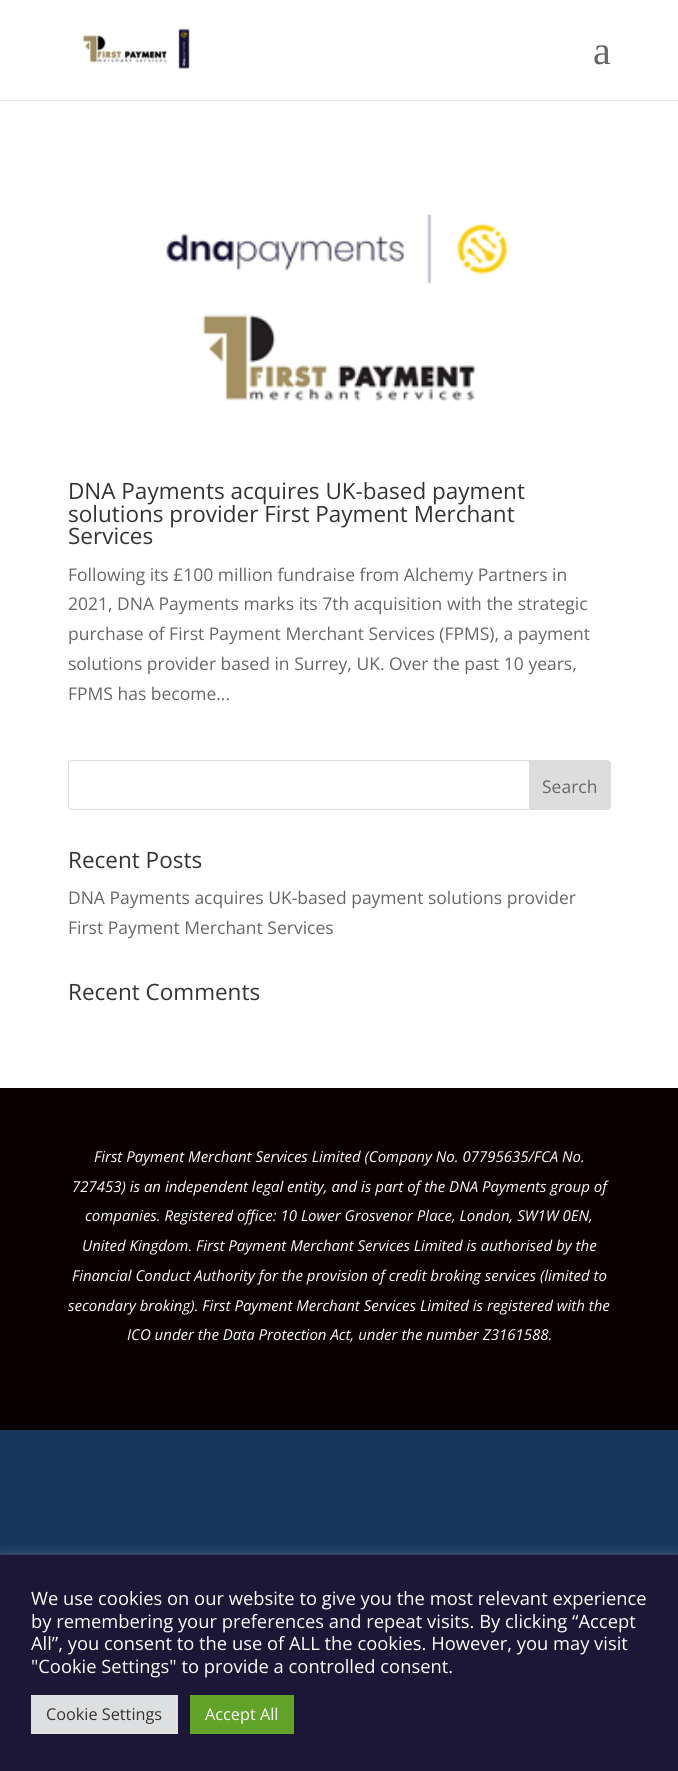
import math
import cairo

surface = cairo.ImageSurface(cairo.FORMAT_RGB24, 678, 1771)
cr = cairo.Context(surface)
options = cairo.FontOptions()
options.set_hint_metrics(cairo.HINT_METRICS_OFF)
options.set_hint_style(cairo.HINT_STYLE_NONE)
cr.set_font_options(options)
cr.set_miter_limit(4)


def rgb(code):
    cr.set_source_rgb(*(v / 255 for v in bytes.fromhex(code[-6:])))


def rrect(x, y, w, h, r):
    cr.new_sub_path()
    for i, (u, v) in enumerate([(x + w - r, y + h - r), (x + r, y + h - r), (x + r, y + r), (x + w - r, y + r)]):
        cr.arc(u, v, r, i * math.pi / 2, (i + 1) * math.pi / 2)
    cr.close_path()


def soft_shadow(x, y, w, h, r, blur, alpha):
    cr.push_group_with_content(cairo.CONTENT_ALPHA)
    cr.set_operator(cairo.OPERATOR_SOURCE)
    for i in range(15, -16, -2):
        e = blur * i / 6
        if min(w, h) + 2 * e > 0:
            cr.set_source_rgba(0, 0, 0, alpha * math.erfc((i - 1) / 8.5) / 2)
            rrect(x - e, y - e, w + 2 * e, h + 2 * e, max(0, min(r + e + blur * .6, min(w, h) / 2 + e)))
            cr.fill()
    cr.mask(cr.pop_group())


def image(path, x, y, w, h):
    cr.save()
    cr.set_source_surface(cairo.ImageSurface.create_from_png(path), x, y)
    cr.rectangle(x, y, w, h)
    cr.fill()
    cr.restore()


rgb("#17365d")
cr.paint()
rgb("#e6e6e6")
cr.new_path()
cr.move_to(0, 100)
cr.line_to(0, 101)
cr.line_to(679, 101)
cr.line_to(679, 1)
cr.line_to(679, 100)
cr.close_path()
cr.fill()
rgb("#ffffff")
cr.rectangle(0, 0, 678, 100)
cr.fill()
image("img/1.png", 83, 28, 107, 41)
cr.rectangle(0, 101, 678, 987)
cr.fill()
image("img/2.png", 166, 214, 342, 187)
rrect(68.5, 760.5, 542, 49, 3.5)
rgb("#dddddd")
cr.set_line_width(1)
cr.stroke()
cr.new_path()
cr.move_to(529.5, 760.5)
cr.line_to(607, 760.5)
cr.curve_to(609, 760.5, 610.5, 762, 610.5, 764)
cr.line_to(610.5, 806)
cr.curve_to(610.5, 808, 609, 809.5, 607, 809.5)
cr.line_to(529.5, 809.5)
cr.close_path()
cr.fill_preserve()
cr.stroke()
rgb("#0a0000")
cr.rectangle(0, 1088, 678, 317)
cr.fill()
rgb("#070000")
cr.rectangle(0, 1405, 678, 25)
cr.fill()
rgb("#acabab")
soft_shadow(0, 1554, 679, 216, 0, 6, 0.3)
for x, y, w, h, color in [
    (0, 1555, 678, 216, "#1d1737"),
    (31, 1695, 147, 39, "#dedfe0"),
    (190, 1695, 104, 39, "#61a229"),
]:
    rgb(color)
    cr.rectangle(x, y, w, h)
    cr.fill()
cr.select_font_face("Liberation Serif")
cr.set_font_size(40)
rgb("#666666")
cr.move_to(593, 64)
cr.show_text("a")
cr.select_font_face("Open Sans")
cr.set_font_size(22.5)
rgb("#333333")
for x, y, s in [
    (68, 499, "DNA Payments acquires UK-based payment"),
    (68, 522, "solutions provider First Payment Merchant"),
    (68, 544, "Services"),
]:
    cr.move_to(x, y)
    cr.show_text(s)
cr.set_font_size(17.5)
rgb("#666666")
for x, y, s in [
    (68, 581, "Following its £100 million fundraise from Alchemy Partners in"),
    (68, 610, "2021, DNA Payments marks its 7th acquisition with the strategic"),
    (68, 640, "purchase of First Payment Merchant Services (FPMS), a payment"),
    (68, 670, "solutions provider based in Surrey, UK. Over the past 10 years,"),
    (68, 700, "FPMS has become..."),
    (542, 793, "Search"),
]:
    cr.move_to(x, y)
    cr.show_text(s)
cr.set_font_size(22.5)
rgb("#333333")
cr.move_to(68, 868)
cr.show_text("Recent Posts")
cr.set_font_size(17.5)
rgb("#666666")
cr.move_to(68, 904)
cr.show_text("DNA Payments acquires UK-based payment solutions provider")
cr.move_to(68, 934)
cr.show_text("First Payment Merchant Services")
cr.set_font_size(22.5)
rgb("#333333")
cr.move_to(68, 1000)
cr.show_text("Recent Comments")
cr.select_font_face("Open Sans", cairo.FONT_SLANT_ITALIC)
cr.set_font_size(15)
rgb("#ffffff")
for x, y, s in [
    (94, 1162, "First Payment Merchant Services Limited (Company No. 07795635/FCA No."),
    (72, 1192, "727453) is an independent legal entity, and is part of the DNA Payments group of"),
    (85, 1221, "companies. Registered office: 10 Lower Grosvenor Place, London, SW1W 0EN,"),
    (82, 1251, "United Kingdom. First Payment Merchant Services Limited is authorised by the"),
    (72, 1281, "Financial Conduct Authority for the provision of credit broking services (limited to"),
    (68, 1311, "secondary broking). First Payment Merchant Services Limited is registered with the"),
    (127, 1340, "ICO under the Data Protection Act, under the number Z3161588."),
]:
    cr.move_to(x, y)
    cr.show_text(s)
cr.select_font_face("Open Sans")
cr.set_font_size(18.35)
for x, y, s in [
    (31, 1605, "We use cookies on our website to give you the most relevant experience"),
    (31, 1628, "by remembering your preferences and repeat visits. By clicking “Accept"),
    (31, 1650, "All”, you consent to the use of ALL the cookies. However, you may visit"),
    (31, 1673, "\"Cookie Settings\" to provide a controlled consent."),
]:
    cr.move_to(x, y)
    cr.show_text(s)
cr.set_font_size(16.25)
rgb("#333333")
cr.move_to(46, 1720)
cr.show_text("Cookie Settings")
rgb("#ffffff")
cr.move_to(205, 1720)
cr.show_text("Accept All")
surface.write_to_png("page.png")
